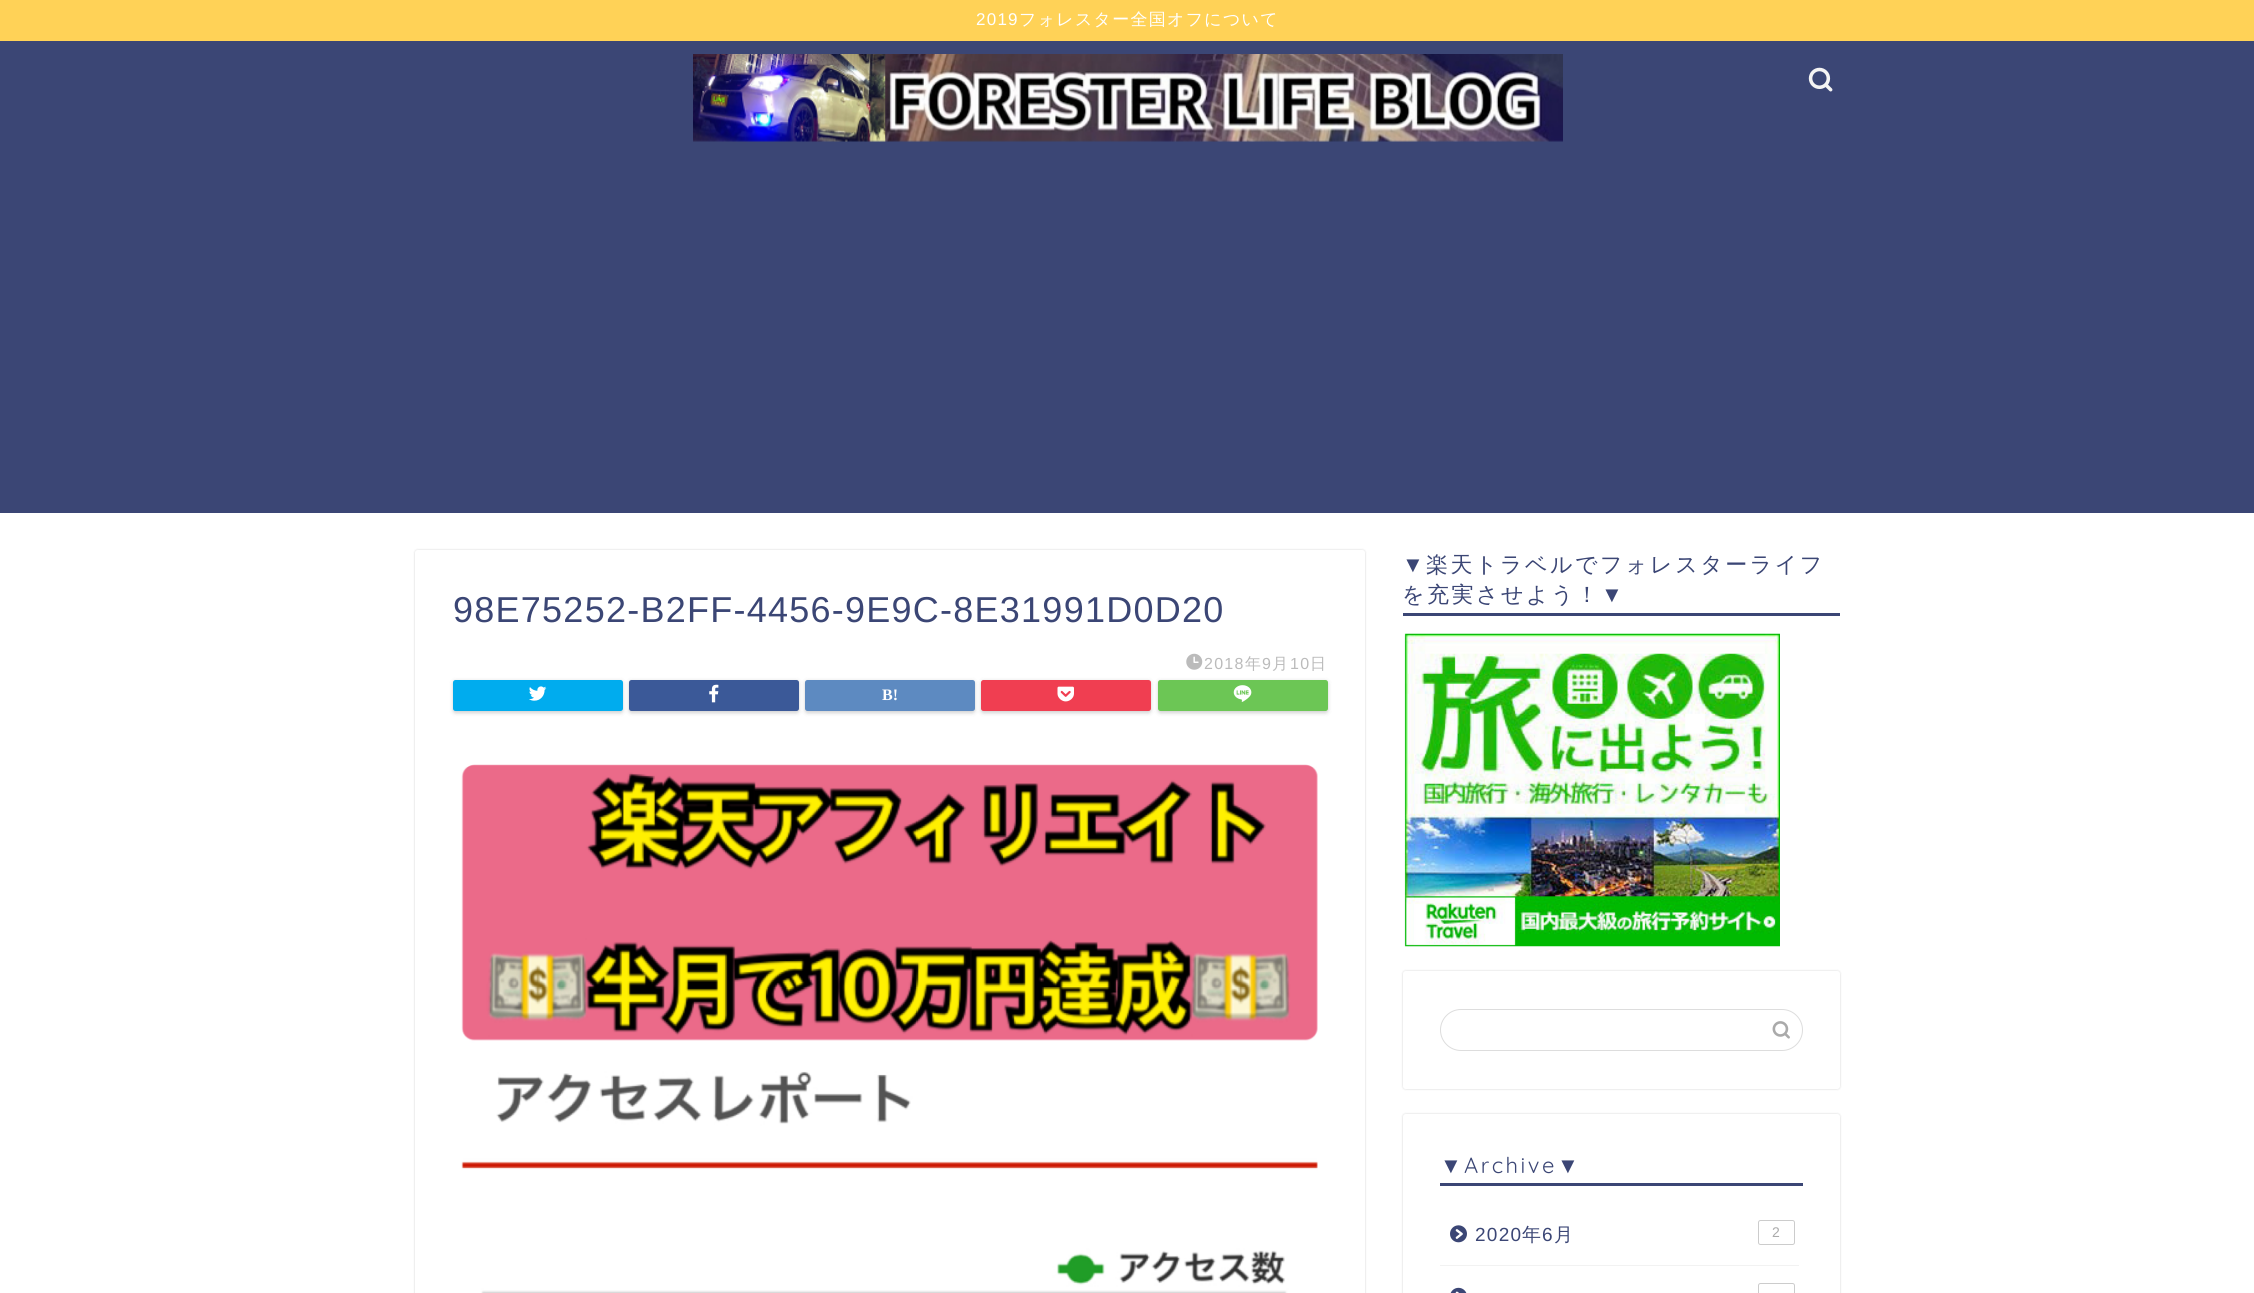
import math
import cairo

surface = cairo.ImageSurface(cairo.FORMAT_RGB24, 2254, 1293)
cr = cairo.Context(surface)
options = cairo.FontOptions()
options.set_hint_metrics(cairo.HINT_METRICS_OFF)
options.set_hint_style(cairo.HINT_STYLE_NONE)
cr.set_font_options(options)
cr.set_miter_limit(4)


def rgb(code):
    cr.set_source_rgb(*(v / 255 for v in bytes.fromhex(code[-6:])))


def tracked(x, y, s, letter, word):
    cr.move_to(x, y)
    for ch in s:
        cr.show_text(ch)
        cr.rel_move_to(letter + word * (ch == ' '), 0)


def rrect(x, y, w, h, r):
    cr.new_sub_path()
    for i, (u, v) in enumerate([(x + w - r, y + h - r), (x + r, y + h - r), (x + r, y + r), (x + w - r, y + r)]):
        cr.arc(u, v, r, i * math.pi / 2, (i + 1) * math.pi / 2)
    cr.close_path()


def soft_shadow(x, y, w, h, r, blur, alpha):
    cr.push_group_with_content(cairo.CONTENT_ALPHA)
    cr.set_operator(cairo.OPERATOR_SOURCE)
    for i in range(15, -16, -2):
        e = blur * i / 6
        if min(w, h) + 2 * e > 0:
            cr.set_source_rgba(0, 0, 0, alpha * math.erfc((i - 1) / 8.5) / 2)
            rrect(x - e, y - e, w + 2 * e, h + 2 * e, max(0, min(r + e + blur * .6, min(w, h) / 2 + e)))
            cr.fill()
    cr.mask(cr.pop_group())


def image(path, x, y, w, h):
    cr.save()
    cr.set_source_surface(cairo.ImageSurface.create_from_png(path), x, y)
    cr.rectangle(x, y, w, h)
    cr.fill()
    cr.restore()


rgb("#ffffff")
cr.paint()
rgb("#ffd257")
cr.rectangle(0, 0, 2254, 41)
cr.fill()
rgb("#3b4675")
cr.rectangle(0, 41, 2254, 472)
cr.fill()
image("img/1.png", 693, 54, 870, 88)
image("img/2.png", 1808, 67, 25, 25)
rgb("#000000")
soft_shadow(415, 550, 950, 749, 2.5, 1, 0.18)
rgb("#ffffff")
rrect(415, 550, 950, 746, 2.5)
cr.fill()
image("img/3.png", 1186, 653, 17, 17)
rgb("#000000")
soft_shadow(453, 681, 170, 32, 2.5, 2, 0.18)
rgb("#00acee")
rrect(454.5, 681.5, 167, 28, 1)
cr.fill_preserve()
cr.set_line_width(3)
cr.stroke()
image("img/4.png", 529, 686, 18, 15)
rgb("#000000")
soft_shadow(629, 681, 170, 32, 2.5, 2, 0.18)
rgb("#3b5998")
rrect(630.5, 681.5, 167, 28, 1)
cr.fill_preserve()
cr.stroke()
image("img/5.png", 709, 684, 10, 19)
rgb("#000000")
soft_shadow(805, 681, 170, 32, 2.5, 2, 0.18)
rgb("#5d8ac1")
rrect(806.5, 681.5, 167, 28, 1)
cr.fill_preserve()
cr.stroke()
rgb("#000000")
soft_shadow(981, 681, 170, 32, 2.5, 2, 0.18)
rgb("#f03e51")
rrect(982.5, 681.5, 167, 28, 1)
cr.fill_preserve()
cr.stroke()
image("img/6.png", 1057, 686, 17, 16)
rgb("#000000")
soft_shadow(1158, 681, 170, 32, 2.5, 2, 0.18)
rgb("#6cc655")
rrect(1159.5, 681.5, 167, 28, 1)
cr.fill_preserve()
cr.stroke()
image("img/7.png", 1233, 685, 19, 17)
image("img/8.png", 461, 764, 857, 529)
rgb("#3b4675")
cr.rectangle(1403, 613, 437, 3)
cr.fill()
image("img/9.png", 1404, 633, 376, 314)
rgb("#000000")
soft_shadow(1403, 971, 437, 118, 2.5, 1, 0.18)
rgb("#ffffff")
rrect(1403, 971, 437, 118, 2.5)
cr.fill()
rrect(1440.5, 1009.5, 362, 41, 20.5)
rgb("#dddddd")
cr.set_line_width(1)
cr.stroke()
image("img/10.png", 1772, 1021, 18, 18)
rgb("#000000")
soft_shadow(1403, 1114, 437, 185, 2.5, 1, 0.18)
rgb("#ffffff")
rrect(1403, 1114, 437, 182, 2.5)
cr.fill()
rgb("#3b4675")
cr.rectangle(1440, 1183, 363, 3)
cr.fill()
rgb("#f2f2f2")
cr.rectangle(1440, 1265, 359, 1)
cr.fill()
image("img/11.png", 1450, 1225, 17, 18)
rrect(1758.5, 1220.5, 36, 24, 2)
rgb("#cccccc")
cr.stroke()
image("img/12.png", 1450, 1287, 17, 6)
rrect(1758.5, 1283.5, 36, 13, 2)
cr.stroke()
cr.select_font_face("Liberation Sans")
cr.set_font_size(17)
rgb("#ffffff")
tracked(976, 25, "2019", 1.25, 0)
cr.select_font_face("WenQuanYi Zen Hei Medium")
tracked(1019, 25, "フォレスター全国オフについて", 1.25, 0)
cr.select_font_face("Liberation Sans")
cr.set_font_size(36)
rgb("#3b4675")
tracked(453, 622, "98E75252-B2FF-4456-9E9C-8E31991D0D20", 1.25, 0)
cr.set_font_size(16)
rgb("#bbbbbb")
tracked(1204, 669, "2018", 1.25, 0)
cr.select_font_face("WenQuanYi Zen Hei Medium")
tracked(1245, 669, "年", 1.25, 0)
cr.select_font_face("Liberation Sans")
tracked(1262, 669, "9", 1.25, 0)
cr.select_font_face("WenQuanYi Zen Hei Medium")
tracked(1272, 669, "月", 1.25, 0)
cr.select_font_face("Liberation Sans")
tracked(1290, 669, "10", 1.25, 0)
cr.select_font_face("WenQuanYi Zen Hei Medium")
tracked(1310, 669, "日", 1.25, 0)
cr.select_font_face("Liberation Serif", cairo.FONT_SLANT_NORMAL, cairo.FONT_WEIGHT_BOLD)
rgb("#ffffff")
cr.move_to(882, 700)
cr.show_text("B!")
cr.select_font_face("Liberation Sans")
cr.set_font_size(22)
rgb("#3b4675")
tracked(1402, 572, "▼", 2.5, 0)
cr.select_font_face("WenQuanYi Zen Hei Medium")
tracked(1426, 572, "楽天トラベルでフォレスターライフ", 2.5, 0)
tracked(1402, 602, "を充実させよう！", 2.5, 0)
cr.select_font_face("Liberation Sans")
tracked(1601, 602, "▼", 2.5, 0)
tracked(1440, 1173, "▼", 2.5, 0)
cr.select_font_face("Quicksand Light")
tracked(1464, 1173, "Archive", 2.5, 0)
cr.select_font_face("Liberation Sans")
tracked(1557, 1173, "▼", 2.5, 0)
cr.set_font_size(19)
tracked(1475, 1241, "2020", 1.25, 0)
cr.select_font_face("WenQuanYi Zen Hei Medium")
tracked(1522, 1241, "年", 1.25, 0)
cr.select_font_face("Liberation Sans")
tracked(1542, 1241, "6", 1.25, 0)
cr.select_font_face("WenQuanYi Zen Hei Medium")
tracked(1554, 1241, "月", 1.25, 0)
cr.select_font_face("Liberation Sans")
cr.set_font_size(14)
rgb("#aaaaaa")
cr.move_to(1772, 1237)
cr.show_text("2")
surface.write_to_png("page.png")
